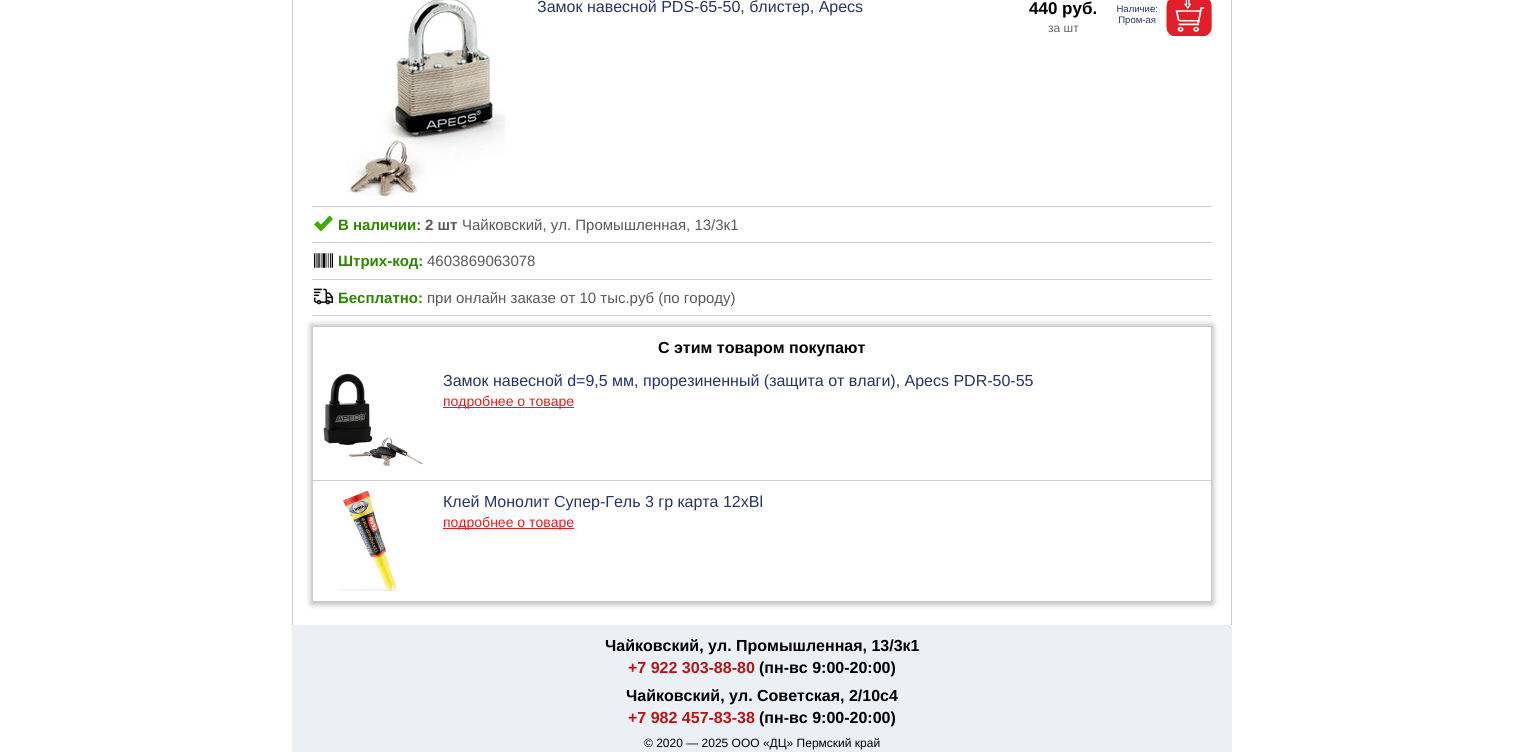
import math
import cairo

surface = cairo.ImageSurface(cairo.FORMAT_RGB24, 1524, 752)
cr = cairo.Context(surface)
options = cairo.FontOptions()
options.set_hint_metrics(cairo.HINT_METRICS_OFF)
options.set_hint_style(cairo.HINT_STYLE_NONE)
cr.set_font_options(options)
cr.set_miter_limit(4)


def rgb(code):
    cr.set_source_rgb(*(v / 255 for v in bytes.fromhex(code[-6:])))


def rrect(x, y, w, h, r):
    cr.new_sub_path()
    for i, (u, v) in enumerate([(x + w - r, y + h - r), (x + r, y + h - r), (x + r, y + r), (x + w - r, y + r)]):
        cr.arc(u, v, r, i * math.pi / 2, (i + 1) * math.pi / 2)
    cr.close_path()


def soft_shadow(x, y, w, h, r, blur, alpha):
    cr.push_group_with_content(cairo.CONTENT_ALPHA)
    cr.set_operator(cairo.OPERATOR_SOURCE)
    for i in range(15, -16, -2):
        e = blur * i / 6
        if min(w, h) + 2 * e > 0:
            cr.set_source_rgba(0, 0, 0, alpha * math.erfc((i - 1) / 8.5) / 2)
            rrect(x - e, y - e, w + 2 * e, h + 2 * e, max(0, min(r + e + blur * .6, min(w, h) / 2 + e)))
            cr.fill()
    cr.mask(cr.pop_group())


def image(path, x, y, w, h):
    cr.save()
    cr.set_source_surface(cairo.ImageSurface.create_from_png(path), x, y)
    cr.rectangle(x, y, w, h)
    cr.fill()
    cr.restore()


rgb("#ffffff")
cr.paint()
for x, y, w, h, color in [
    (1231, 0, 1, 625, "#cccccc"),
    (292, 0, 1, 625, "#cccccc"),
    (312, 206, 900, 1, "#cccccc"),
]:
    rgb(color)
    cr.rectangle(x, y, w, h)
    cr.fill()
image("img/1.png", 346, 0, 159, 196)
image("img/2.png", 1117, 5, 41, 20)
image("img/3.png", 1166, 0, 46, 36)
cr.rectangle(312, 242, 900, 1)
cr.fill()
rgb("#3caa00")
cr.new_path()
cr.move_to(329.5, 215.5)
cr.line_to(321, 224.5)
cr.line_to(317.5, 221)
cr.line_to(314, 224.5)
cr.line_to(321, 231.5)
cr.line_to(333, 219)
cr.close_path()
cr.fill()
rgb("#cccccc")
cr.rectangle(312, 279, 900, 1)
cr.fill()
image("img/4.png", 314, 253, 19, 15)
cr.rectangle(312, 315, 900, 1)
cr.fill()
image("img/5.png", 314, 288, 19, 17)
cr.save()
cr.set_fill_rule(cairo.FILL_RULE_EVEN_ODD)
cr.new_path()
cr.move_to(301, 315)
cr.line_to(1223, 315)
cr.line_to(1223, 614)
cr.line_to(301, 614)
cr.close_path()
cr.move_to(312, 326)
cr.line_to(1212, 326)
cr.line_to(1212, 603)
cr.line_to(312, 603)
cr.close_path()
cr.clip()
rgb("#000000")
soft_shadow(311, 325, 902, 279, 0, 3, 0.3)
cr.restore()
cr.rectangle(312.5, 326.5, 899, 276)
cr.set_line_width(1)
cr.stroke()
cr.rectangle(313, 480, 898, 1)
cr.fill()
image("img/6.png", 323, 373, 100, 94)
rgb("#e31e24")
cr.rectangle(443, 407, 131, 1)
cr.fill()
rgb("#cccccc")
cr.rectangle(313, 601, 898, 1)
cr.fill()
image("img/7.png", 337, 491, 64, 100)
rgb("#e31e24")
cr.rectangle(443, 528, 131, 1)
cr.fill()
rgb("#ebf0f4")
cr.rectangle(292, 625, 940, 127)
cr.fill()
cr.select_font_face("Liberation Sans")
cr.set_font_size(16)
rgb("#263463")
cr.move_to(537, 12)
cr.show_text("Замок навесной PDS-65-50, блистер, Apecs")
cr.select_font_face("Liberation Sans", cairo.FONT_SLANT_NORMAL, cairo.FONT_WEIGHT_BOLD)
cr.set_font_size(17)
rgb("#000000")
cr.move_to(1029, 14)
cr.show_text("440 руб.")
cr.select_font_face("Liberation Sans")
cr.set_font_size(12)
rgb("#666666")
cr.move_to(1048, 32)
cr.show_text("за шт")
cr.select_font_face("Liberation Sans", cairo.FONT_SLANT_NORMAL, cairo.FONT_WEIGHT_BOLD)
cr.set_font_size(15)
rgb("#2e8500")
cr.move_to(338, 230)
cr.show_text("В наличии:")
rgb("#595959")
cr.move_to(425, 230)
cr.show_text("2 шт")
cr.select_font_face("Liberation Sans")
cr.move_to(462, 230)
cr.show_text("Чайковский, ул. Промышленная, 13/3к1")
cr.select_font_face("Liberation Sans", cairo.FONT_SLANT_NORMAL, cairo.FONT_WEIGHT_BOLD)
rgb("#2e8500")
cr.move_to(338, 266)
cr.show_text("Штрих-код:")
cr.select_font_face("Liberation Sans")
rgb("#595959")
cr.move_to(427, 266)
cr.show_text("4603869063078")
cr.select_font_face("Liberation Sans", cairo.FONT_SLANT_NORMAL, cairo.FONT_WEIGHT_BOLD)
rgb("#2e8500")
cr.move_to(338, 303)
cr.show_text("Бесплатно:")
cr.select_font_face("Liberation Sans")
rgb("#595959")
cr.move_to(427, 303)
cr.show_text("при онлайн заказе от 10 тыс.руб (по городу)")
cr.select_font_face("Liberation Sans", cairo.FONT_SLANT_NORMAL, cairo.FONT_WEIGHT_BOLD)
cr.set_font_size(16)
rgb("#000000")
cr.move_to(658, 353)
cr.show_text("С этим товаром покупают")
cr.select_font_face("Liberation Sans")
rgb("#263463")
cr.move_to(443, 386)
cr.show_text("Замок навесной d=9,5 мм, прорезиненный (защита от влаги), Apecs PDR-50-55")
cr.set_font_size(14)
rgb("#e31e24")
cr.move_to(443, 406)
cr.show_text("подробнее о товаре")
cr.set_font_size(16)
rgb("#263463")
cr.move_to(443, 507)
cr.show_text("Клей Монолит Супер-Гель 3 гр карта 12хBl")
cr.set_font_size(14)
rgb("#e31e24")
cr.move_to(443, 527)
cr.show_text("подробнее о товаре")
cr.select_font_face("Liberation Sans", cairo.FONT_SLANT_NORMAL, cairo.FONT_WEIGHT_BOLD)
cr.set_font_size(16)
rgb("#000000")
cr.move_to(605, 651)
cr.show_text("Чайковский, ул. Промышленная, 13/3к1")
rgb("#b51717")
cr.move_to(628, 673)
cr.show_text("+7 922 303-88-80")
rgb("#000000")
cr.move_to(759, 673)
cr.show_text("(пн-вс 9:00-20:00)")
cr.move_to(626, 701)
cr.show_text("Чайковский, ул. Советская, 2/10с4")
rgb("#b51717")
cr.move_to(628, 723)
cr.show_text("+7 982 457-83-38")
rgb("#000000")
cr.move_to(759, 723)
cr.show_text("(пн-вс 9:00-20:00)")
cr.select_font_face("Liberation Sans")
cr.set_font_size(12)
cr.move_to(644, 747)
cr.show_text("© 2020 — 2025 ООО «ДЦ» Пермский край")
surface.write_to_png("page.png")
